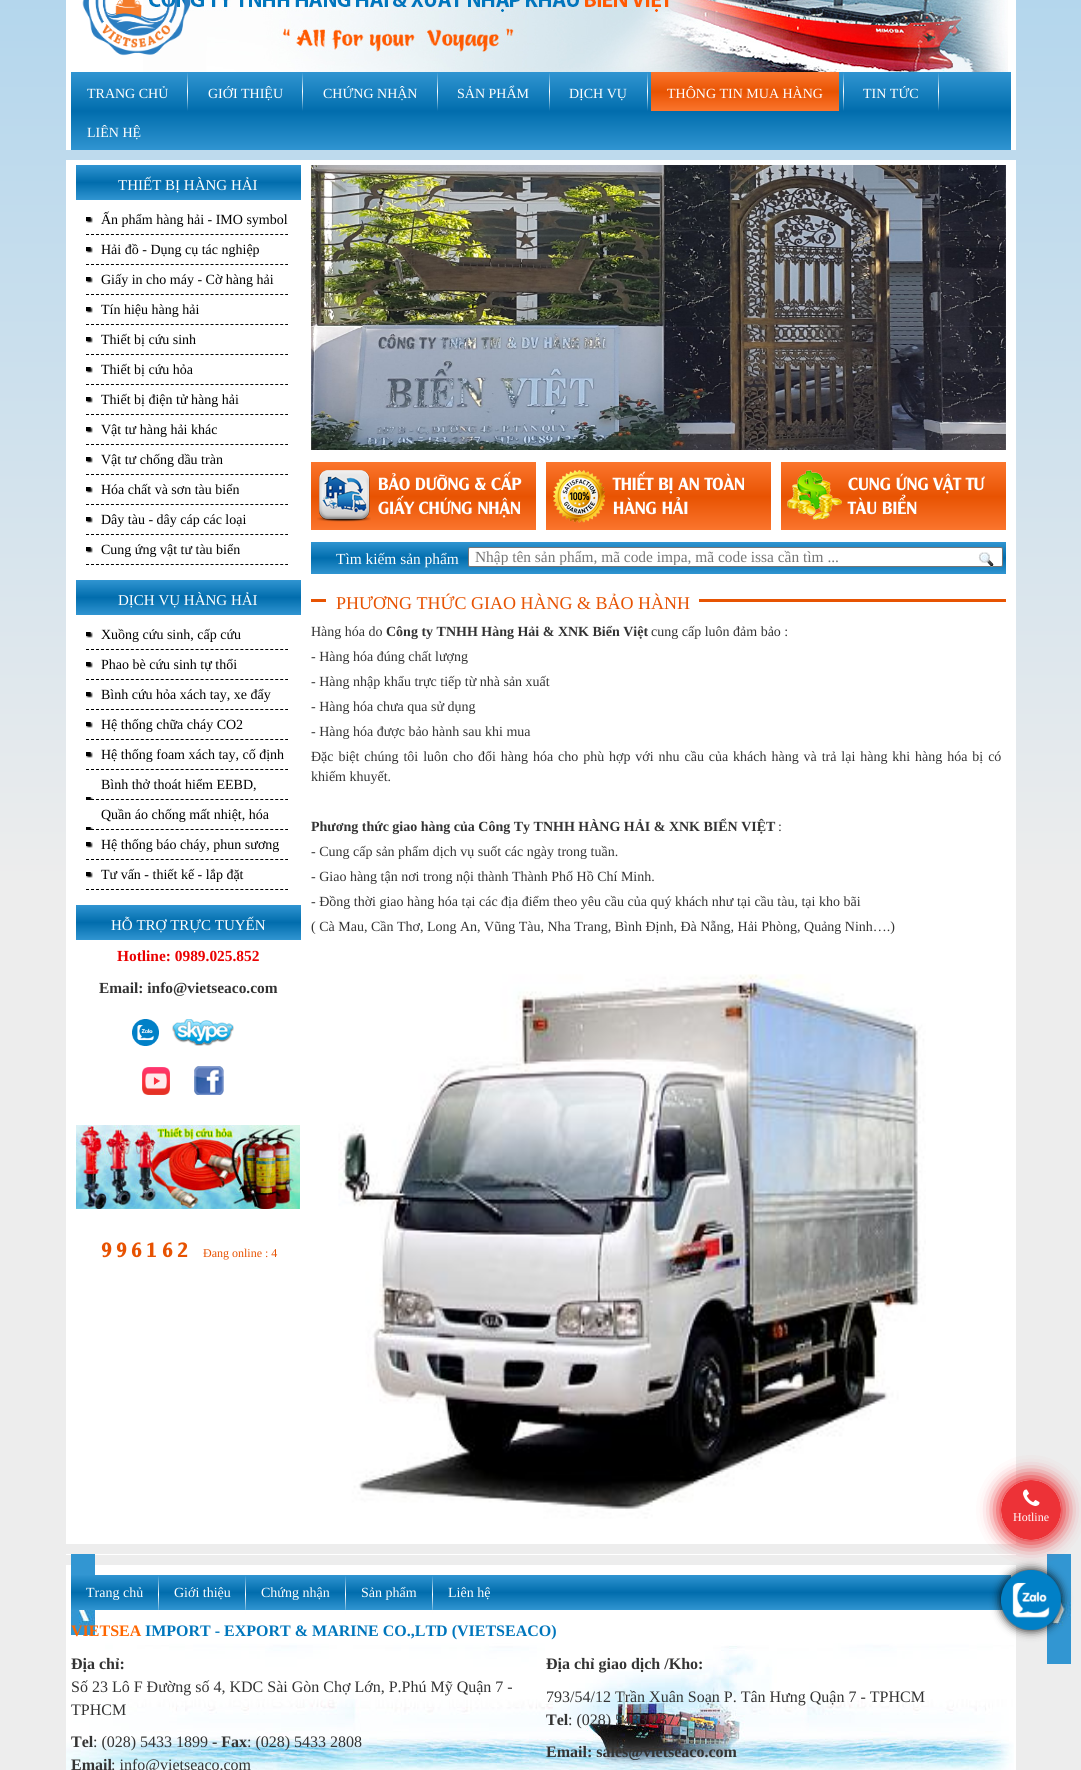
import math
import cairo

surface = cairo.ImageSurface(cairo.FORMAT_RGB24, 1081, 1770)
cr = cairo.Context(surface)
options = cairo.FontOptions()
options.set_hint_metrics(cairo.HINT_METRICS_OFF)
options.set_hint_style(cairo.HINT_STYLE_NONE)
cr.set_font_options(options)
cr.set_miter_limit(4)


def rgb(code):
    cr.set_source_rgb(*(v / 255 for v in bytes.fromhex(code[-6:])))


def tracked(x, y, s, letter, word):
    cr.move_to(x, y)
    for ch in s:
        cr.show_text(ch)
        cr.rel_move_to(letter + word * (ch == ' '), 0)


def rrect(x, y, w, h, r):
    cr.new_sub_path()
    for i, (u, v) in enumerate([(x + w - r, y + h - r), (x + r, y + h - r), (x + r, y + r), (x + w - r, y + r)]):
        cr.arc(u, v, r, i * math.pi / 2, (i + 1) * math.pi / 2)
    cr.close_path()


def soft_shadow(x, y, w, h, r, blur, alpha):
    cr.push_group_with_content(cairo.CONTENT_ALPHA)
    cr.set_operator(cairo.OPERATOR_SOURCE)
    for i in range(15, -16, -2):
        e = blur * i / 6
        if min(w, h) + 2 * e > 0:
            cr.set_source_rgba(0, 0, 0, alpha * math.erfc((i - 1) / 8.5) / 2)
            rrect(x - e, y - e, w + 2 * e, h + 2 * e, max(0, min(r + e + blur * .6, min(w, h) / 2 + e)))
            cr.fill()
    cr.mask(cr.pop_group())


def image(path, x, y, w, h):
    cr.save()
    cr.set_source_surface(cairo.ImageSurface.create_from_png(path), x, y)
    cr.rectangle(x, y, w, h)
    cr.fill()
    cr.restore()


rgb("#ffffff")
cr.paint()
gradient = cairo.LinearGradient(540, -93, 541, 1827)
gradient.add_color_stop_rgba(0, 0.682, 0.831, 0.929, 1)
gradient.add_color_stop_rgba(0.51, 0.929, 0.929, 0.929, 1)
cr.set_source(gradient)
cr.rectangle(0, 0, 1081, 1770)
cr.fill()
rgb("#ffffff")
cr.rectangle(66, 0, 950, 150)
cr.fill()
image("img/1.png", 143, 0, 865, 72)
image("img/2.png", 82, 0, 109, 56)
gradient = cairo.LinearGradient(541, 72, 541, 150)
gradient.add_color_stop_rgba(0, 0.188, 0.584, 0.82, 1)
gradient.add_color_stop_rgba(0.5, 0.004, 0.427, 0.678, 1)
gradient.add_color_stop_rgba(1, 0.188, 0.584, 0.82, 1)
cr.set_source(gradient)
cr.rectangle(71, 72, 940, 78)
cr.fill()
gradient = cairo.LinearGradient(188, 72, 188, 111)
gradient.add_color_stop_rgba(0, 1, 1, 1, 0)
gradient.add_color_stop_rgba(0.01, 1, 1, 1, 0)
gradient.add_color_stop_rgba(0.5, 1, 1, 1, 1)
gradient.add_color_stop_rgba(0.99, 1, 0.976, 0.976, 0.02)
gradient.add_color_stop_rgba(1, 1, 0.976, 0.976, 0)
cr.set_source(gradient)
cr.rectangle(187, 72, 1, 39)
cr.fill()
gradient = cairo.LinearGradient(303, 72, 303, 111)
gradient.add_color_stop_rgba(0, 1, 1, 1, 0)
gradient.add_color_stop_rgba(0.01, 1, 1, 1, 0)
gradient.add_color_stop_rgba(0.5, 1, 1, 1, 1)
gradient.add_color_stop_rgba(0.99, 1, 0.976, 0.976, 0.02)
gradient.add_color_stop_rgba(1, 1, 0.976, 0.976, 0)
cr.set_source(gradient)
cr.rectangle(302, 72, 1, 39)
cr.fill()
gradient = cairo.LinearGradient(438, 72, 438, 111)
gradient.add_color_stop_rgba(0, 1, 1, 1, 0)
gradient.add_color_stop_rgba(0.01, 1, 1, 1, 0)
gradient.add_color_stop_rgba(0.5, 1, 1, 1, 1)
gradient.add_color_stop_rgba(0.99, 1, 0.976, 0.976, 0.02)
gradient.add_color_stop_rgba(1, 1, 0.976, 0.976, 0)
cr.set_source(gradient)
cr.rectangle(437, 72, 1, 39)
cr.fill()
gradient = cairo.LinearGradient(550, 72, 550, 111)
gradient.add_color_stop_rgba(0, 1, 1, 1, 0)
gradient.add_color_stop_rgba(0.01, 1, 1, 1, 0)
gradient.add_color_stop_rgba(0.5, 1, 1, 1, 1)
gradient.add_color_stop_rgba(0.99, 1, 0.976, 0.976, 0.02)
gradient.add_color_stop_rgba(1, 1, 0.976, 0.976, 0)
cr.set_source(gradient)
cr.rectangle(549, 72, 1, 39)
cr.fill()
gradient = cairo.LinearGradient(648, 72, 648, 111)
gradient.add_color_stop_rgba(0, 1, 1, 1, 0)
gradient.add_color_stop_rgba(0.01, 1, 1, 1, 0)
gradient.add_color_stop_rgba(0.5, 1, 1, 1, 1)
gradient.add_color_stop_rgba(0.99, 1, 0.976, 0.976, 0.02)
gradient.add_color_stop_rgba(1, 1, 0.976, 0.976, 0)
cr.set_source(gradient)
cr.rectangle(647, 72, 1, 39)
cr.fill()
gradient = cairo.LinearGradient(745, 72, 745, 111)
gradient.add_color_stop_rgba(0, 0.984, 0.459, 0.176, 1)
gradient.add_color_stop_rgba(0.51, 0.91, 0.325, 0.008, 1)
gradient.add_color_stop_rgba(1, 0.984, 0.459, 0.176, 1)
cr.set_source(gradient)
cr.rectangle(651, 72, 188, 39)
cr.fill()
gradient = cairo.LinearGradient(844, 72, 844, 111)
gradient.add_color_stop_rgba(0, 1, 1, 1, 0)
gradient.add_color_stop_rgba(0.01, 1, 1, 1, 0)
gradient.add_color_stop_rgba(0.5, 1, 1, 1, 1)
gradient.add_color_stop_rgba(0.99, 1, 0.976, 0.976, 0.02)
gradient.add_color_stop_rgba(1, 1, 0.976, 0.976, 0)
cr.set_source(gradient)
cr.rectangle(843, 72, 1, 39)
cr.fill()
gradient = cairo.LinearGradient(939, 72, 939, 111)
gradient.add_color_stop_rgba(0, 1, 1, 1, 0)
gradient.add_color_stop_rgba(0.01, 1, 1, 1, 0)
gradient.add_color_stop_rgba(0.5, 1, 1, 1, 1)
gradient.add_color_stop_rgba(0.99, 1, 0.976, 0.976, 0.02)
gradient.add_color_stop_rgba(1, 1, 0.976, 0.976, 0)
cr.set_source(gradient)
cr.rectangle(938, 72, 1, 39)
cr.fill()
rgb("#ffffff")
cr.rectangle(66, 160, 950, 1384)
cr.fill()
gradient = cairo.LinearGradient(189, 165, 189, 200)
gradient.add_color_stop_rgba(0, 0.188, 0.584, 0.82, 1)
gradient.add_color_stop_rgba(0.5, 0.004, 0.427, 0.678, 1)
gradient.add_color_stop_rgba(1, 0.188, 0.584, 0.82, 1)
cr.set_source(gradient)
cr.rectangle(76, 165, 225, 35)
cr.fill()
cr.new_path()
cr.move_to(86, 234.5)
cr.line_to(288, 234.5)
rgb("#000000")
cr.set_line_width(1)
cr.set_dash([3, 1.98])
cr.stroke()
image("img/3.png", 86, 217, 7, 6)
cr.new_path()
cr.move_to(86, 264.5)
cr.line_to(288, 264.5)
cr.stroke()
image("img/3.png", 86, 247, 7, 6)
cr.new_path()
cr.move_to(86, 294.5)
cr.line_to(288, 294.5)
cr.stroke()
image("img/3.png", 86, 277, 7, 6)
cr.new_path()
cr.move_to(86, 324.5)
cr.line_to(288, 324.5)
cr.stroke()
image("img/3.png", 86, 307, 7, 6)
cr.new_path()
cr.move_to(86, 354.5)
cr.line_to(288, 354.5)
cr.stroke()
image("img/3.png", 86, 337, 7, 6)
cr.new_path()
cr.move_to(86, 384.5)
cr.line_to(288, 384.5)
cr.stroke()
image("img/3.png", 86, 367, 7, 6)
cr.new_path()
cr.move_to(86, 414.5)
cr.line_to(288, 414.5)
cr.stroke()
image("img/3.png", 86, 397, 7, 6)
cr.new_path()
cr.move_to(86, 444.5)
cr.line_to(288, 444.5)
cr.stroke()
image("img/3.png", 86, 427, 7, 6)
cr.new_path()
cr.move_to(86, 474.5)
cr.line_to(288, 474.5)
cr.stroke()
image("img/3.png", 86, 457, 7, 6)
cr.new_path()
cr.move_to(86, 504.5)
cr.line_to(288, 504.5)
cr.stroke()
image("img/3.png", 86, 487, 7, 6)
cr.new_path()
cr.move_to(86, 534.5)
cr.line_to(288, 534.5)
cr.stroke()
image("img/3.png", 86, 517, 7, 6)
cr.new_path()
cr.move_to(86, 564.5)
cr.line_to(288, 564.5)
cr.stroke()
image("img/3.png", 86, 547, 7, 6)
gradient = cairo.LinearGradient(189, 580, 189, 615)
gradient.add_color_stop_rgba(0, 0.188, 0.584, 0.82, 1)
gradient.add_color_stop_rgba(0.5, 0.004, 0.427, 0.678, 1)
gradient.add_color_stop_rgba(1, 0.188, 0.584, 0.82, 1)
cr.set_source(gradient)
cr.rectangle(76, 580, 225, 35)
cr.fill()
cr.new_path()
cr.move_to(86, 649.5)
cr.line_to(288, 649.5)
rgb("#000000")
cr.stroke()
image("img/3.png", 86, 632, 7, 6)
cr.new_path()
cr.move_to(86, 679.5)
cr.line_to(288, 679.5)
cr.stroke()
image("img/3.png", 86, 662, 7, 6)
cr.new_path()
cr.move_to(86, 709.5)
cr.line_to(288, 709.5)
cr.stroke()
image("img/3.png", 86, 692, 7, 6)
cr.new_path()
cr.move_to(86, 739.5)
cr.line_to(288, 739.5)
cr.stroke()
image("img/3.png", 86, 722, 7, 6)
cr.new_path()
cr.move_to(86, 769.5)
cr.line_to(288, 769.5)
cr.stroke()
image("img/3.png", 86, 752, 7, 6)
cr.new_path()
cr.move_to(86, 799.5)
cr.line_to(288, 799.5)
cr.stroke()
image("img/4.png", 86, 797, 7, 3)
cr.new_path()
cr.move_to(86, 829.5)
cr.line_to(288, 829.5)
cr.stroke()
image("img/4.png", 86, 827, 7, 3)
cr.new_path()
cr.move_to(86, 859.5)
cr.line_to(288, 859.5)
cr.stroke()
image("img/3.png", 86, 842, 7, 6)
cr.new_path()
cr.move_to(86, 889.5)
cr.line_to(288, 889.5)
cr.stroke()
image("img/3.png", 86, 872, 7, 6)
gradient = cairo.LinearGradient(189, 905, 189, 940)
gradient.add_color_stop_rgba(0, 0.188, 0.584, 0.82, 1)
gradient.add_color_stop_rgba(0.5, 0.004, 0.427, 0.678, 1)
gradient.add_color_stop_rgba(1, 0.188, 0.584, 0.82, 1)
cr.set_source(gradient)
cr.rectangle(76, 905, 225, 35)
cr.fill()
image("img/5.png", 132, 1019, 27, 27)
image("img/6.png", 172, 1019, 62, 27)
image("img/7.png", 142, 1067, 28, 28)
image("img/8.png", 194, 1066, 30, 29)
image("img/9.png", 76, 1125, 224, 84)
image("img/10.png", 311, 165, 695, 285)
gradient = cairo.LinearGradient(424, 462, 424, 530)
gradient.add_color_stop_rgba(0, 0.984, 0.459, 0.176, 1)
gradient.add_color_stop_rgba(0.51, 0.91, 0.325, 0.008, 1)
gradient.add_color_stop_rgba(1, 0.984, 0.459, 0.176, 1)
cr.set_source(gradient)
cr.rectangle(311, 462, 225, 68)
cr.fill()
image("img/11.png", 317, 470, 54, 52)
gradient = cairo.LinearGradient(659, 462, 659, 530)
gradient.add_color_stop_rgba(0, 0.984, 0.459, 0.176, 1)
gradient.add_color_stop_rgba(0.51, 0.91, 0.325, 0.008, 1)
gradient.add_color_stop_rgba(1, 0.984, 0.459, 0.176, 1)
cr.set_source(gradient)
cr.rectangle(546, 462, 225, 68)
cr.fill()
image("img/12.png", 553, 470, 52, 53)
gradient = cairo.LinearGradient(894, 462, 894, 530)
gradient.add_color_stop_rgba(0, 0.984, 0.459, 0.176, 1)
gradient.add_color_stop_rgba(0.51, 0.91, 0.325, 0.008, 1)
gradient.add_color_stop_rgba(1, 0.984, 0.459, 0.176, 1)
cr.set_source(gradient)
cr.rectangle(781, 462, 225, 68)
cr.fill()
image("img/13.png", 787, 470, 55, 50)
gradient = cairo.LinearGradient(659, 542, 659, 574)
gradient.add_color_stop_rgba(0, 0.188, 0.584, 0.82, 1)
gradient.add_color_stop_rgba(0.5, 0.004, 0.427, 0.678, 1)
gradient.add_color_stop_rgba(1, 0.188, 0.584, 0.82, 1)
cr.set_source(gradient)
cr.rectangle(311, 542, 695, 32)
cr.fill()
rgb("#ffffff")
rrect(468.5, 547.5, 534, 19, 1.5)
cr.fill_preserve()
rgb("#767676")
cr.set_dash([])
cr.stroke()
image("img/14.png", 978, 552, 16, 15)
rgb("#e75302")
cr.rectangle(311, 599, 695, 3)
cr.fill()
rgb("#ffffff")
cr.rectangle(326, 599, 373, 3)
cr.fill()
image("img/15.png", 338, 974, 588, 545)
rgb("#ed3237")
cr.arc(1031, 1510, 30, 0, 2 * math.pi)
cr.fill()
rgb("#ffffff")
cr.rectangle(66, 1554, 950, 1)
cr.fill()
image("img/18.png", 1047, 1554, 24, 110)
cr.rectangle(66, 1565, 950, 205)
cr.fill()
image("img/17.png", 71, 1554, 24, 81)
gradient = cairo.LinearGradient(541, 1575, 541, 1610)
gradient.add_color_stop_rgba(0, 0.188, 0.584, 0.82, 1)
gradient.add_color_stop_rgba(0.5, 0.004, 0.427, 0.678, 1)
gradient.add_color_stop_rgba(1, 0.188, 0.584, 0.82, 1)
cr.set_source(gradient)
cr.rectangle(71, 1575, 940, 35)
cr.fill()
image("img/19.png", 66, 1635, 948, 135)
rgb("#000000")
soft_shadow(1001, 1570, 60, 60, 30, 5, 1)
image("img/20.png", 1001, 1570, 60, 60)
cr.save()
cr.set_fill_rule(cairo.FILL_RULE_EVEN_ODD)
cr.new_path()
cr.move_to(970, 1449)
cr.line_to(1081, 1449)
cr.line_to(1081, 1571)
cr.line_to(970, 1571)
cr.close_path()
cr.move_to(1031, 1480)
cr.curve_to(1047.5, 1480, 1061, 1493.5, 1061, 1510)
cr.curve_to(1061, 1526.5, 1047.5, 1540, 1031, 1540)
cr.curve_to(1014.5, 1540, 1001, 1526.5, 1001, 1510)
cr.curve_to(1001, 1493.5, 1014.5, 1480, 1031, 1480)
cr.close_path()
cr.clip()
rgb("#ed3237")
soft_shadow(1001, 1480, 60, 60, 30, 10, 1)
cr.restore()
image("img/16.png", 1023, 1489, 17, 17)
cr.save()
cr.set_fill_rule(cairo.FILL_RULE_EVEN_ODD)
cr.new_path()
cr.move_to(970, 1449)
cr.line_to(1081, 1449)
cr.line_to(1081, 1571)
cr.line_to(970, 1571)
cr.close_path()
cr.move_to(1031, 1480)
cr.curve_to(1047.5, 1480, 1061, 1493.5, 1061, 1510)
cr.curve_to(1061, 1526.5, 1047.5, 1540, 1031, 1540)
cr.curve_to(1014.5, 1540, 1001, 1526.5, 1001, 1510)
cr.curve_to(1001, 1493.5, 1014.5, 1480, 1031, 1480)
cr.close_path()
cr.clip()
rgb("#ed3237")
soft_shadow(1001, 1480, 60, 60, 30, 10, 1)
cr.restore()
gradient = cairo.LinearGradient(159, 1575, 159, 1614)
gradient.add_color_stop_rgba(0, 1, 1, 1, 0)
gradient.add_color_stop_rgba(0.01, 1, 1, 1, 0)
gradient.add_color_stop_rgba(0.5, 1, 1, 1, 1)
gradient.add_color_stop_rgba(0.99, 1, 0.976, 0.976, 0.02)
gradient.add_color_stop_rgba(1, 1, 0.976, 0.976, 0)
cr.set_source(gradient)
cr.rectangle(158, 1575, 1, 39)
cr.fill()
gradient = cairo.LinearGradient(246, 1575, 246, 1614)
gradient.add_color_stop_rgba(0, 1, 1, 1, 0)
gradient.add_color_stop_rgba(0.01, 1, 1, 1, 0)
gradient.add_color_stop_rgba(0.5, 1, 1, 1, 1)
gradient.add_color_stop_rgba(0.99, 1, 0.976, 0.976, 0.02)
gradient.add_color_stop_rgba(1, 1, 0.976, 0.976, 0)
cr.set_source(gradient)
cr.rectangle(245, 1575, 1, 39)
cr.fill()
gradient = cairo.LinearGradient(346, 1575, 346, 1614)
gradient.add_color_stop_rgba(0, 1, 1, 1, 0)
gradient.add_color_stop_rgba(0.01, 1, 1, 1, 0)
gradient.add_color_stop_rgba(0.5, 1, 1, 1, 1)
gradient.add_color_stop_rgba(0.99, 1, 0.976, 0.976, 0.02)
gradient.add_color_stop_rgba(1, 1, 0.976, 0.976, 0)
cr.set_source(gradient)
cr.rectangle(345, 1575, 1, 39)
cr.fill()
gradient = cairo.LinearGradient(433, 1575, 433, 1614)
gradient.add_color_stop_rgba(0, 1, 1, 1, 0)
gradient.add_color_stop_rgba(0.01, 1, 1, 1, 0)
gradient.add_color_stop_rgba(0.5, 1, 1, 1, 1)
gradient.add_color_stop_rgba(0.99, 1, 0.976, 0.976, 0.02)
gradient.add_color_stop_rgba(1, 1, 0.976, 0.976, 0)
cr.set_source(gradient)
cr.rectangle(432, 1575, 1, 39)
cr.fill()
cr.select_font_face("Liberation Serif")
cr.set_font_size(14)
rgb("#ffffff")
for x, y, s in [
    (87, 98, "TRANG CHỦ"),
    (208, 98, "GIỚI THIỆU"),
    (323, 98, "CHỨNG NHẬN"),
    (457, 98, "SẢN PHẨM"),
    (569, 98, "DỊCH VỤ"),
    (667, 98, "THÔNG TIN MUA HÀNG"),
    (863, 98, "TIN TỨC"),
    (87, 137, "LIÊN HỆ"),
]:
    cr.move_to(x, y)
    cr.show_text(s)
cr.set_font_size(15)
cr.move_to(118, 190)
cr.show_text("THIẾT BỊ HÀNG HẢI")
cr.set_font_size(14)
rgb("#000000")
for x, y, s in [
    (101, 224, "Ấn phẩm hàng hải - IMO symbol"),
    (101, 254, "Hải đồ - Dụng cụ tác nghiệp"),
    (101, 284, "Giấy in cho máy - Cờ hàng hải"),
    (101, 314, "Tín hiệu hàng hải"),
    (101, 344, "Thiết bị cứu sinh"),
    (101, 374, "Thiết bị cứu hỏa"),
    (101, 404, "Thiết bị điện tử hàng hải"),
    (101, 434, "Vật tư hàng hải khác"),
    (101, 464, "Vật tư chống dầu tràn"),
    (101, 494, "Hóa chất và sơn tàu biển"),
    (101, 524, "Dây tàu - dây cáp các loại"),
    (101, 554, "Cung ứng vật tư tàu biển"),
]:
    cr.move_to(x, y)
    cr.show_text(s)
cr.set_font_size(15)
rgb("#ffffff")
cr.move_to(118, 605)
cr.show_text("DỊCH VỤ HÀNG HẢI")
cr.set_font_size(14)
rgb("#000000")
for x, y, s in [
    (101, 639, "Xuồng cứu sinh, cấp cứu"),
    (101, 669, "Phao bè cứu sinh tự thổi"),
    (101, 699, "Bình cứu hỏa xách tay, xe đẩy"),
    (101, 729, "Hệ thống chữa cháy CO2"),
    (101, 759, "Hệ thống foam xách tay, cố định"),
    (101, 789, "Bình thở thoát hiểm EEBD,"),
    (101, 819, "Quần áo chống mất nhiệt, hóa"),
    (101, 849, "Hệ thống báo cháy, phun sương"),
    (101, 879, "Tư vấn - thiết kế - lắp đặt"),
]:
    cr.move_to(x, y)
    cr.show_text(s)
cr.set_font_size(15)
rgb("#ffffff")
cr.move_to(111, 930)
cr.show_text("HỖ TRỢ TRỰC TUYẾN")
cr.select_font_face("Liberation Serif", cairo.FONT_SLANT_NORMAL, cairo.FONT_WEIGHT_BOLD)
cr.set_font_size(15.4)
rgb("#ea0000")
cr.move_to(117, 961)
cr.show_text("Hotline: 0989.025.852")
rgb("#333333")
cr.move_to(99, 993)
cr.show_text("Email: info@vietseaco.com")
cr.select_font_face("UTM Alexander")
cr.set_font_size(20)
rgb("#e75201")
for x, y, s in [
    (101, 1257, "9"),
    (116, 1257, "9"),
    (131, 1257, "6"),
    (146, 1257, "1"),
    (162, 1257, "6"),
    (177, 1257, "2"),
]:
    cr.move_to(x, y)
    cr.show_text(s)
cr.select_font_face("Liberation Serif")
cr.set_font_size(12)
cr.move_to(203, 1257)
cr.show_text("Đang online : 4")
cr.select_font_face("UTM Alexander")
cr.set_font_size(17)
rgb("#ffffff")
for x, y, s in [
    (378, 490, "BẢO DƯỠNG & CẤP"),
    (378, 514, "GIẤY CHỨNG NHẬN"),
    (613, 490, "THIẾT BỊ AN TOÀN"),
    (613, 514, "HÀNG HẢI"),
    (848, 490, "CUNG ỨNG VẬT TƯ"),
    (848, 514, "TÀU BIỂN"),
]:
    cr.move_to(x, y)
    cr.show_text(s)
cr.select_font_face("Liberation Serif")
cr.set_font_size(15.4)
cr.move_to(336, 564)
cr.show_text("Tìm kiếm sản phẩm")
cr.save()
cr.rectangle(475, 549, 521, 16)
cr.clip()
rgb("#757575")
cr.move_to(475, 562)
cr.show_text("Nhập tên sản phẩm, mã code impa, mã code issa cần tìm ...")
cr.restore()
cr.set_font_size(18)
rgb("#e75201")
cr.move_to(336, 609)
cr.show_text("PHƯƠNG THỨC GIAO HÀNG & BẢO HÀNH")
cr.set_font_size(14)
rgb("#333333")
cr.move_to(311, 636)
cr.show_text("Hàng hóa do")
cr.select_font_face("Liberation Serif", cairo.FONT_SLANT_NORMAL, cairo.FONT_WEIGHT_BOLD)
cr.move_to(386, 636)
cr.show_text("Công ty TNHH Hàng Hải & XNK Biển Việt")
cr.select_font_face("Liberation Serif")
for x, y, s in [
    (651, 636, "cung cấp luôn đảm bảo :"),
    (311, 661, "- Hàng hóa đúng chất lượng"),
    (311, 686, "- Hàng nhập khẩu trực tiếp từ nhà sản xuất"),
    (311, 711, "- Hàng hóa chưa qua sử dụng"),
    (311, 736, "- Hàng hóa được bảo hành sau khi mua"),
]:
    cr.move_to(x, y)
    cr.show_text(s)
tracked(311, 761, "Đặc biệt chúng tôi luôn cho đổi hàng hóa cho phù hợp với nhu cầu của khách hàng và trả lại hàng khi hàng hóa bị có", 0, 1.4)
cr.move_to(311, 781)
cr.show_text("khiếm khuyết.")
cr.select_font_face("Liberation Serif", cairo.FONT_SLANT_NORMAL, cairo.FONT_WEIGHT_BOLD)
cr.move_to(311, 831)
cr.show_text("Phương thức giao hàng của Công Ty TNHH HÀNG HẢI & XNK BIỂN VIỆT")
cr.select_font_face("Liberation Serif")
for x, y, s in [
    (778, 831, ":"),
    (311, 856, "- Cung cấp sản phẩm dịch vụ suốt các ngày trong tuần."),
    (311, 881, "- Giao hàng tận nơi trong nội thành Thành Phố Hồ Chí Minh."),
    (311, 906, "- Đồng thời giao hàng hóa tại các địa điểm theo yêu cầu của quý khách như tại cầu tàu, tại kho bãi"),
    (311, 931, "( Cà Mau, Cần Thơ, Long An, Vũng Tàu, Nha Trang, Bình Định, Đà Nẵng, Hải Phòng, Quảng Ninh….)"),
]:
    cr.move_to(x, y)
    cr.show_text(s)
cr.set_font_size(12)
rgb("#ffffff")
cr.move_to(1013, 1521)
cr.show_text("Hotline")
cr.set_font_size(14)
for x, y, s in [
    (86, 1597, "Trang chủ"),
    (174, 1597, "Giới thiệu"),
    (261, 1597, "Chứng nhận"),
    (361, 1597, "Sản phẩm"),
    (448, 1597, "Liên hệ"),
]:
    cr.move_to(x, y)
    cr.show_text(s)
cr.select_font_face("Liberation Serif", cairo.FONT_SLANT_NORMAL, cairo.FONT_WEIGHT_BOLD)
cr.set_font_size(16)
rgb("#ff6600")
cr.move_to(71, 1636)
cr.show_text("VIETSEA")
rgb("#0076bc")
cr.move_to(145, 1636)
cr.show_text("IMPORT - EXPORT & MARINE CO.,LTD (VIETSEACO)")
rgb("#333333")
cr.move_to(71, 1669)
cr.show_text("Địa chỉ:")
cr.select_font_face("Liberation Serif")
cr.move_to(71, 1692)
cr.show_text("Số 23 Lô F Đường số 4, KDC Sài Gòn Chợ Lớn, P.Phú Mỹ Quận 7 -")
cr.move_to(71, 1715)
cr.show_text("TPHCM")
cr.select_font_face("Liberation Serif", cairo.FONT_SLANT_NORMAL, cairo.FONT_WEIGHT_BOLD)
cr.move_to(71, 1747)
cr.show_text("Tel")
cr.select_font_face("Liberation Serif")
cr.move_to(93, 1747)
cr.show_text(": (028) 5433 1899")
cr.select_font_face("Liberation Serif", cairo.FONT_SLANT_NORMAL, cairo.FONT_WEIGHT_BOLD)
cr.move_to(212, 1747)
cr.show_text("- Fax")
cr.select_font_face("Liberation Serif")
cr.move_to(247, 1747)
cr.show_text(": (028) 5433 2808")
cr.select_font_face("Liberation Serif", cairo.FONT_SLANT_NORMAL, cairo.FONT_WEIGHT_BOLD)
cr.move_to(71, 1770)
cr.show_text("Email")
cr.select_font_face("Liberation Serif")
cr.move_to(111, 1770)
cr.show_text(": info@vietseaco.com")
cr.select_font_face("Liberation Serif", cairo.FONT_SLANT_NORMAL, cairo.FONT_WEIGHT_BOLD)
cr.move_to(546, 1669)
cr.show_text("Địa chỉ giao dịch /Kho:")
cr.select_font_face("Liberation Serif")
cr.move_to(546, 1702)
cr.show_text("793/54/12 Trần Xuân Soạn P. Tân Hưng Quận 7 - TPHCM")
cr.select_font_face("Liberation Serif", cairo.FONT_SLANT_NORMAL, cairo.FONT_WEIGHT_BOLD)
cr.move_to(546, 1725)
cr.show_text("Tel")
cr.select_font_face("Liberation Serif")
cr.move_to(568, 1725)
cr.show_text(": (028) 5433 2377")
cr.select_font_face("Liberation Serif", cairo.FONT_SLANT_NORMAL, cairo.FONT_WEIGHT_BOLD)
cr.move_to(546, 1757)
cr.show_text("Email: sales@vietseaco.com")
surface.write_to_png("page.png")
